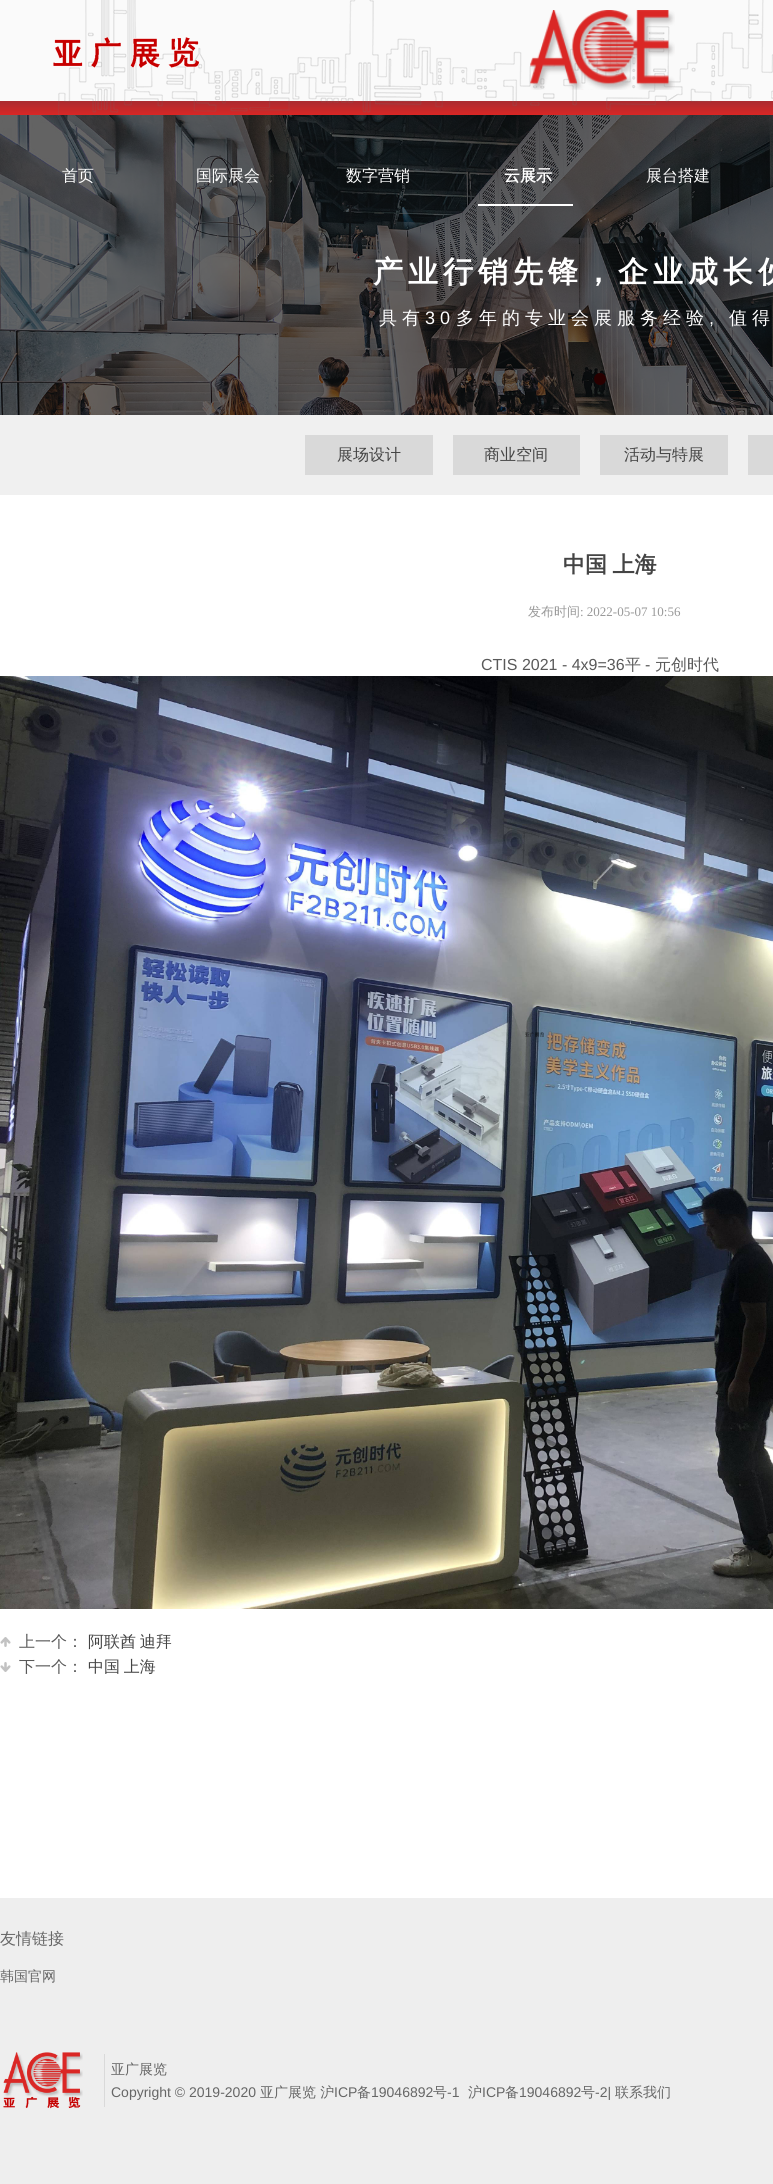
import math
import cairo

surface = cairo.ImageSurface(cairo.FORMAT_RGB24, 773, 2184)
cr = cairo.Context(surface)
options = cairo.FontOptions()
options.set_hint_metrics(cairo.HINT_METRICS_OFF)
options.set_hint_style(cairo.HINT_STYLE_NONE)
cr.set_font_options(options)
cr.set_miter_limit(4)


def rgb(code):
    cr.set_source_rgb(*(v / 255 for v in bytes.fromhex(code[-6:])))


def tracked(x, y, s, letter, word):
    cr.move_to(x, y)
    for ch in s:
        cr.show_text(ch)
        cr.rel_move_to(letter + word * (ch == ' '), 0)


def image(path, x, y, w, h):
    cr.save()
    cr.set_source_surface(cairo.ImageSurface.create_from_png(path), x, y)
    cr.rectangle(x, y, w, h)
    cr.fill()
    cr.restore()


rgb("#ffffff")
cr.paint()
rgb("#fafafa")
cr.rectangle(0, 0, 773, 101)
cr.fill()
image("img/1.png", 0, 101, 773, 14)
image("img/5.png", 0, 115, 773, 300)
image("img/2.png", 58, 0, 715, 116)
image("img/3.png", 53, 37, 146, 31)
image("img/4.png", 530, 10, 145, 80)
image("img/6.png", 33, 251, 15, 27)
rgb("#290000")
cr.arc(600, 379, 6, 0, 2 * math.pi)
cr.fill()
for x, y, w, h, color in [
    (478, 204, 95, 2, "#ffffff"),
    (0, 415, 773, 80, "#f0f0f0"),
    (305, 435, 128, 40, "#d9d9d9"),
    (453, 435, 127, 40, "#d9d9d9"),
    (600, 435, 128, 40, "#d9d9d9"),
    (748, 435, 25, 40, "#d9d9d9"),
]:
    rgb(color)
    cr.rectangle(x, y, w, h)
    cr.fill()
image("img/7.png", 0, 676, 773, 933)
rgb("#c2c2c2")
cr.rectangle(0, 1637, 11, 10)
cr.fill()
image("img/8.png", 0, 1637, 11, 10)
cr.rectangle(0, 1662, 11, 10)
cr.fill()
image("img/9.png", 0, 1662, 11, 10)
rgb("#eeeeee")
cr.rectangle(0, 1898, 773, 286)
cr.fill()
image("img/10.png", 3, 2052, 80, 57)
rgb("#d9d9d9")
cr.rectangle(104, 2054, 1, 53)
cr.fill()
cr.select_font_face("WenQuanYi Zen Hei Medium")
cr.set_font_size(16)
rgb("#ffffff")
for x, y, s in [
    (62, 181, "首页"),
    (196, 181, "国际展会"),
    (346, 181, "数字营销"),
]:
    cr.move_to(x, y)
    cr.show_text(s)
cr.select_font_face("WenQuanYi Zen Hei", cairo.FONT_SLANT_NORMAL, cairo.FONT_WEIGHT_BOLD)
cr.move_to(504, 181)
cr.show_text("云展示")
cr.select_font_face("WenQuanYi Zen Hei Medium")
cr.move_to(646, 181)
cr.show_text("展台搭建")
cr.select_font_face("WenQuanYi Zen Hei", cairo.FONT_SLANT_NORMAL, cairo.FONT_WEIGHT_BOLD)
cr.set_font_size(30)
tracked(373, 282, "产业行销先锋，企业成长伙", 5, 0)
cr.select_font_face("WenQuanYi Zen Hei Medium")
cr.set_font_size(18)
tracked(379, 324, "具有", 5, 0)
cr.select_font_face("Liberation Sans")
tracked(425, 324, "30", 5, 0)
cr.select_font_face("WenQuanYi Zen Hei Medium")
tracked(456, 324, "多年的专业会展服务经验", 5, 0)
cr.select_font_face("Liberation Sans")
tracked(709, 324, ",", 5, 0)
cr.select_font_face("WenQuanYi Zen Hei Medium")
tracked(729, 324, "值得", 5, 0)
cr.set_font_size(16)
rgb("#444444")
for x, y, s in [
    (337, 460, "展场设计"),
    (484, 460, "商业空间"),
    (624, 460, "活动与特展"),
]:
    cr.move_to(x, y)
    cr.show_text(s)
cr.select_font_face("WenQuanYi Zen Hei", cairo.FONT_SLANT_NORMAL, cairo.FONT_WEIGHT_BOLD)
cr.set_font_size(22)
tracked(563, 572, "中国 上海", 0, -1)
cr.select_font_face("WenQuanYi Zen Hei Medium")
cr.set_font_size(13)
rgb("#999999")
cr.move_to(528, 616)
cr.show_text("发布时间")
cr.select_font_face("Liberation Serif")
cr.move_to(580, 616)
cr.show_text(": 2022-05-07 10:56")
cr.select_font_face("Liberation Sans")
cr.set_font_size(16)
rgb("#595959")
cr.move_to(481, 670)
cr.show_text("CTIS 2021 - 4x9=36")
cr.select_font_face("WenQuanYi Zen Hei Medium")
cr.move_to(625, 670)
cr.show_text("平")
cr.select_font_face("Liberation Sans")
cr.move_to(645, 670)
cr.show_text("-")
cr.select_font_face("WenQuanYi Zen Hei Medium")
cr.move_to(655, 670)
cr.show_text("元创时代")
cr.move_to(19, 1647)
cr.show_text("上一个：")
rgb("#444444")
tracked(88, 1647, "阿联酋 迪拜", 0, -1)
rgb("#595959")
cr.move_to(19, 1672)
cr.show_text("下一个：")
rgb("#444444")
tracked(88, 1672, "中国 上海", 0, -1)
rgb("#666666")
cr.move_to(0, 1944)
cr.show_text("友情链接")
cr.set_font_size(14)
cr.move_to(0, 1981)
cr.show_text("韩国官网")
cr.move_to(111, 2074)
cr.show_text("亚广展览")
cr.select_font_face("Liberation Sans")
cr.move_to(111, 2097)
cr.show_text("Copyright © 2019-2020")
cr.select_font_face("WenQuanYi Zen Hei Medium")
cr.move_to(260, 2097)
cr.show_text("亚广展览 沪")
cr.select_font_face("Liberation Sans")
cr.move_to(334, 2097)
cr.show_text("ICP")
cr.select_font_face("WenQuanYi Zen Hei Medium")
cr.move_to(357, 2097)
cr.show_text("备")
cr.select_font_face("Liberation Sans")
cr.move_to(371, 2097)
cr.show_text("19046892")
cr.select_font_face("WenQuanYi Zen Hei Medium")
cr.move_to(433, 2097)
cr.show_text("号")
cr.select_font_face("Liberation Sans")
cr.move_to(447, 2097)
cr.show_text("-1")
cr.select_font_face("WenQuanYi Zen Hei Medium")
cr.move_to(468, 2097)
cr.show_text("沪")
cr.select_font_face("Liberation Sans")
cr.move_to(482, 2097)
cr.show_text("ICP")
cr.select_font_face("WenQuanYi Zen Hei Medium")
cr.move_to(505, 2097)
cr.show_text("备")
cr.select_font_face("Liberation Sans")
cr.move_to(519, 2097)
cr.show_text("19046892")
cr.select_font_face("WenQuanYi Zen Hei Medium")
cr.move_to(581, 2097)
cr.show_text("号")
cr.select_font_face("Liberation Sans")
cr.move_to(595, 2097)
cr.show_text("-2|")
cr.select_font_face("WenQuanYi Zen Hei Medium")
cr.move_to(615, 2097)
cr.show_text("联系我们")
surface.write_to_png("page.png")
